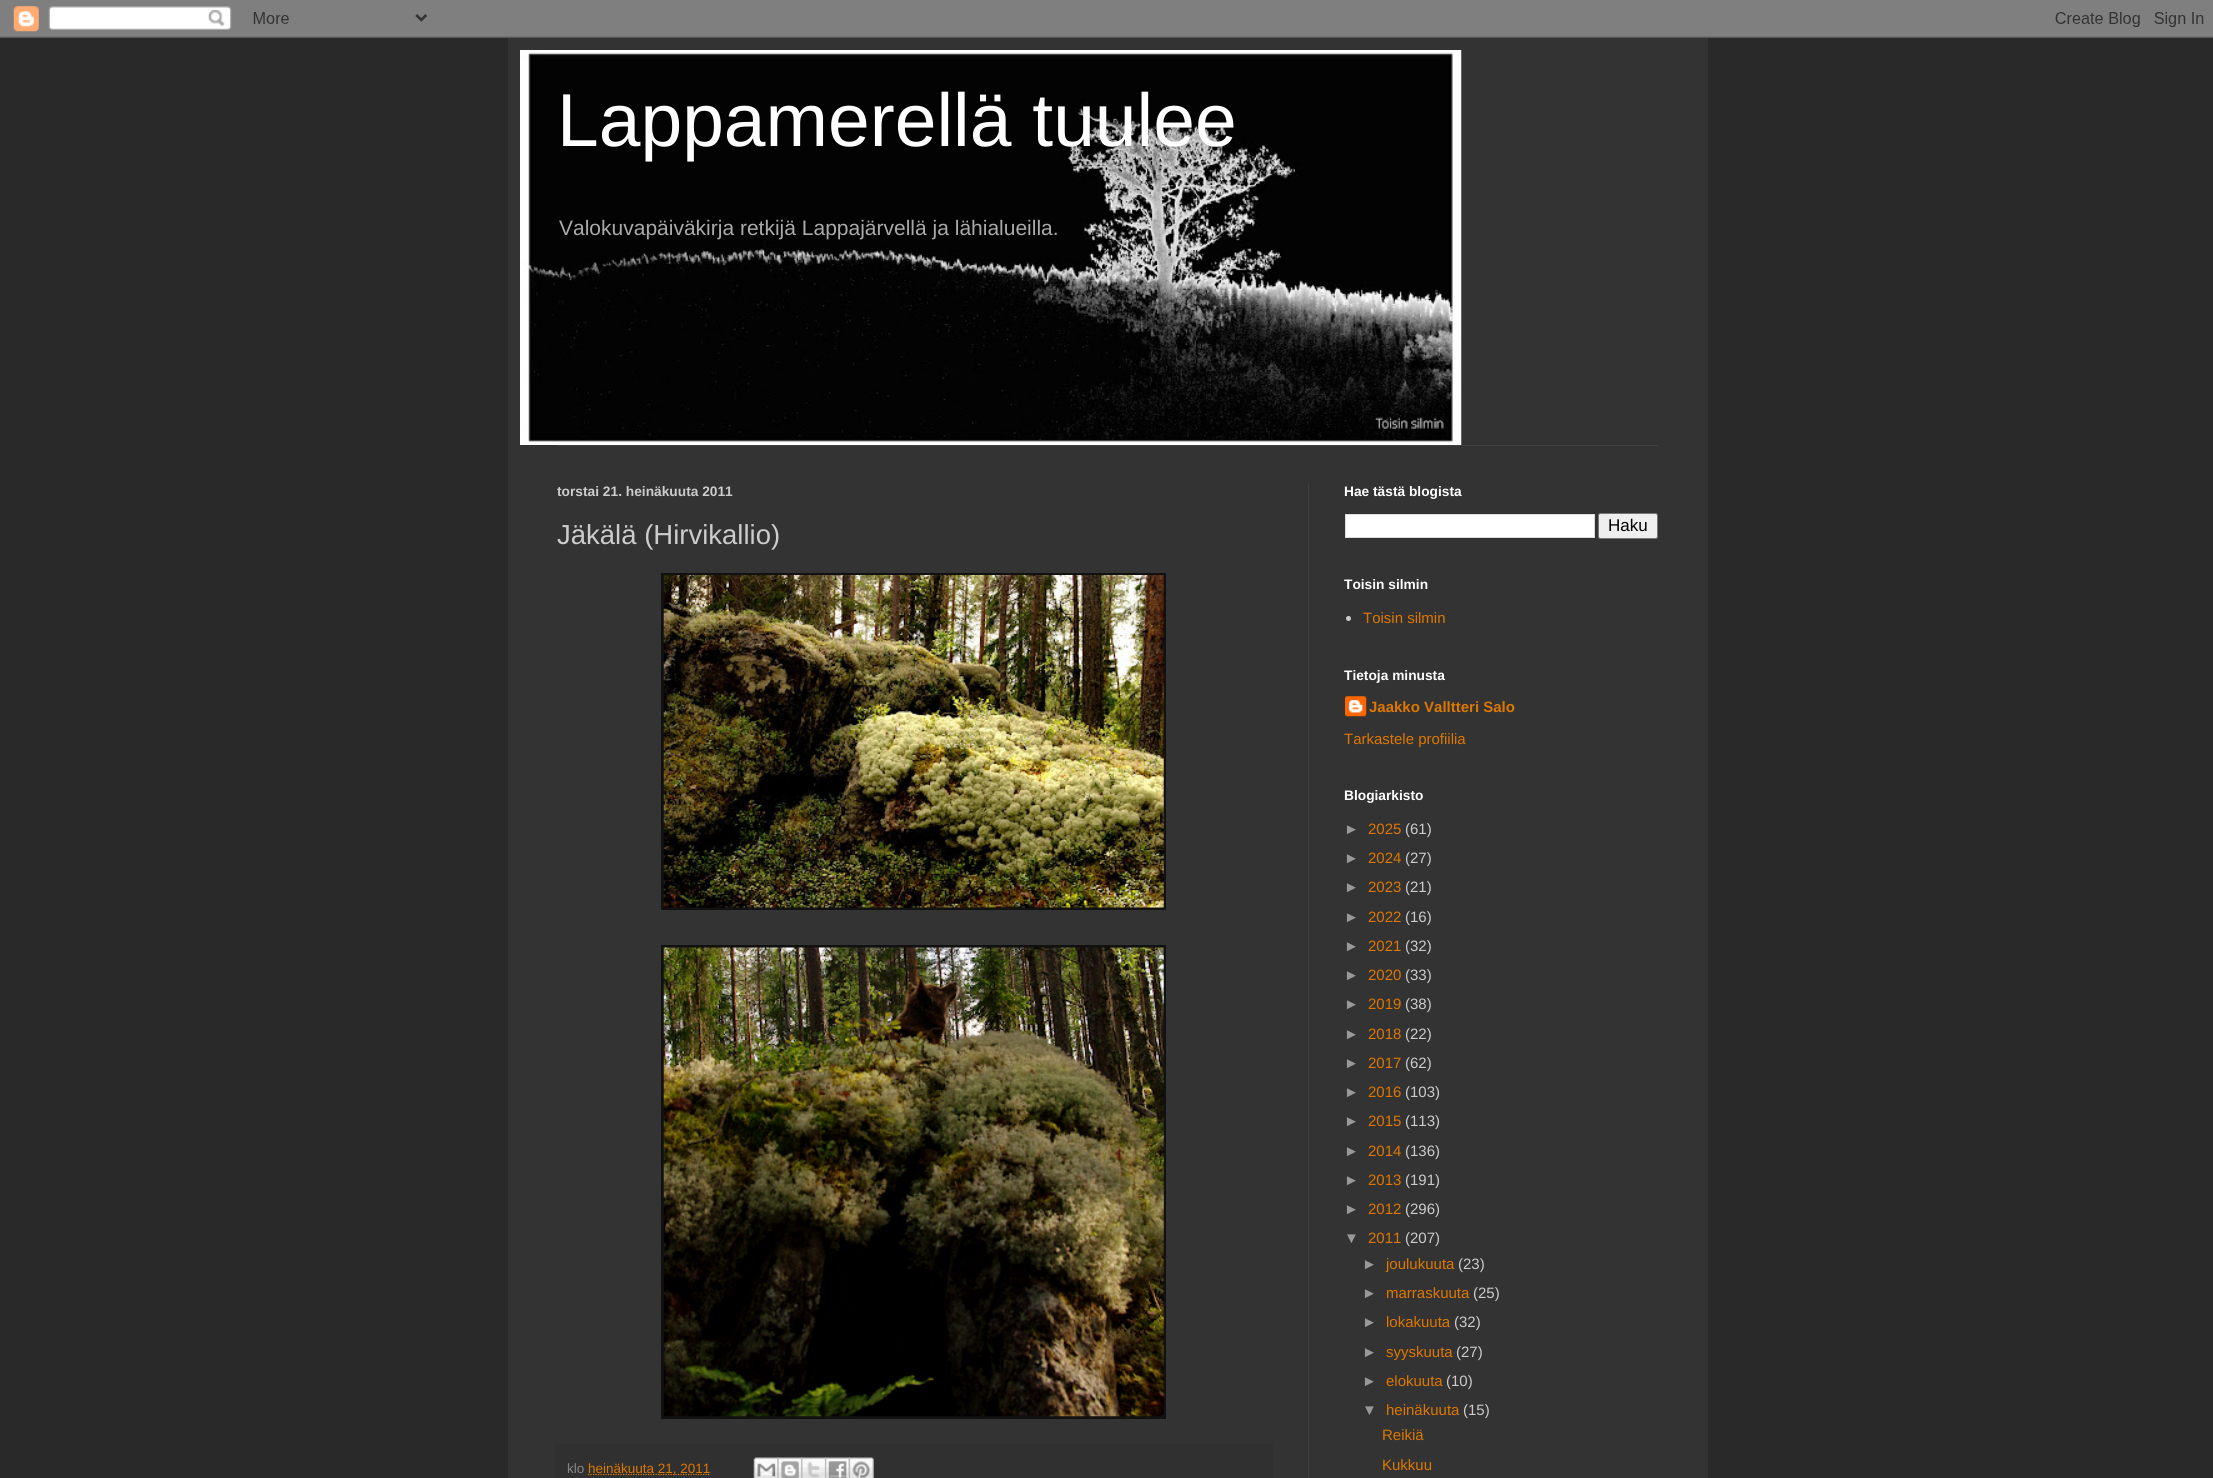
import math
import cairo

surface = cairo.ImageSurface(cairo.FORMAT_RGB24, 2213, 1478)
cr = cairo.Context(surface)
options = cairo.FontOptions()
options.set_hint_metrics(cairo.HINT_METRICS_OFF)
options.set_hint_style(cairo.HINT_STYLE_NONE)
cr.set_font_options(options)
cr.set_miter_limit(4)


def rgb(code):
    cr.set_source_rgb(*(v / 255 for v in bytes.fromhex(code[-6:])))


def rrect(x, y, w, h, r):
    cr.new_sub_path()
    for i, (u, v) in enumerate([(x + w - r, y + h - r), (x + r, y + h - r), (x + r, y + r), (x + w - r, y + r)]):
        cr.arc(u, v, r, i * math.pi / 2, (i + 1) * math.pi / 2)
    cr.close_path()


def image(path, x, y, w, h):
    cr.save()
    cr.set_source_surface(cairo.ImageSurface.create_from_png(path), x, y)
    cr.rectangle(x, y, w, h)
    cr.fill()
    cr.restore()


rgb("#292929")
cr.paint()
image("img/1.png", 0, 0, 2213, 38)
rgb("#333333")
cr.rectangle(508, 38, 1200, 1440)
cr.fill()
image("img/2.png", 520, 50, 942, 395)
for x, y, w, h, color in [
    (558, 445, 1100, 1, "#404040"),
    (1308, 484, 1, 994, "#404040"),
    (661, 573, 505, 337, "#111111"),
]:
    rgb(color)
    cr.rectangle(x, y, w, h)
    cr.fill()
image("img/3.png", 663, 575, 501, 333)
cr.rectangle(661, 945, 505, 474)
cr.fill()
image("img/4.png", 663, 947, 501, 470)
rgb("#303030")
cr.rectangle(555, 1444, 718, 34)
cr.fill()
cr.new_path()
cr.move_to(588, 1474.5)
cr.line_to(710, 1474.5)
rgb("#dd7700")
cr.set_line_width(1.2)
cr.set_dash([1.25, 1.25])
cr.stroke()
image("img/5.png", 753, 1457, 26, 21)
image("img/6.png", 777, 1457, 26, 21)
image("img/7.png", 801, 1457, 26, 21)
image("img/8.png", 825, 1457, 25, 21)
image("img/9.png", 848, 1457, 26, 21)
rgb("#ffffff")
cr.rectangle(1345.5, 514.5, 249, 23)
cr.fill_preserve()
rgb("#dddddd")
cr.set_line_width(1)
cr.set_dash([])
cr.stroke()
rgb("#efefef")
rrect(1598.5, 513.5, 59, 25, 2)
cr.fill_preserve()
rgb("#767676")
cr.stroke()
rgb("#cccccc")
cr.arc(1348.5, 618.5, 2.5, 0, 2 * math.pi)
cr.fill()
image("img/10.png", 1345, 696, 22, 21)
cr.select_font_face("Liberation Sans")
cr.set_font_size(75)
rgb("#ffffff")
cr.move_to(557, 146)
cr.show_text("Lappamerellä tuulee")
cr.set_font_size(21)
rgb("#aaaaaa")
cr.move_to(559, 235)
cr.show_text("Valokuvapäiväkirja retkijä Lappajärvellä ja lähialueilla.")
cr.select_font_face("Liberation Sans", cairo.FONT_SLANT_NORMAL, cairo.FONT_WEIGHT_BOLD)
cr.set_font_size(13.75)
rgb("#cccccc")
cr.move_to(557, 496)
cr.show_text("torstai 21. heinäkuuta 2011")
cr.select_font_face("Liberation Sans")
cr.set_font_size(27.5)
cr.move_to(557, 544)
cr.show_text("Jäkälä (Hirvikallio)")
cr.set_font_size(13.5)
rgb("#888888")
cr.move_to(567, 1473)
cr.show_text("klo")
rgb("#dd7700")
cr.move_to(588, 1473)
cr.show_text("heinäkuuta 21, 2011")
cr.select_font_face("Liberation Sans", cairo.FONT_SLANT_NORMAL, cairo.FONT_WEIGHT_BOLD)
cr.set_font_size(13.75)
rgb("#ffffff")
cr.move_to(1344, 496)
cr.show_text("Hae tästä blogista")
cr.select_font_face("Liberation Sans")
cr.set_font_size(17)
rgb("#000000")
cr.move_to(1608, 531)
cr.show_text("Haku")
cr.select_font_face("Liberation Sans", cairo.FONT_SLANT_NORMAL, cairo.FONT_WEIGHT_BOLD)
cr.set_font_size(13.75)
rgb("#ffffff")
cr.move_to(1344, 589)
cr.show_text("Toisin silmin")
cr.select_font_face("Liberation Sans")
cr.set_font_size(15)
rgb("#dd7700")
cr.move_to(1363, 623)
cr.show_text("Toisin silmin")
cr.select_font_face("Liberation Sans", cairo.FONT_SLANT_NORMAL, cairo.FONT_WEIGHT_BOLD)
cr.set_font_size(13.75)
rgb("#ffffff")
cr.move_to(1344, 680)
cr.show_text("Tietoja minusta")
cr.set_font_size(15)
rgb("#dd7700")
cr.move_to(1369, 712)
cr.show_text("Jaakko Valltteri Salo")
cr.select_font_face("Liberation Sans")
cr.move_to(1344, 744)
cr.show_text("Tarkastele profiilia")
cr.select_font_face("Liberation Sans", cairo.FONT_SLANT_NORMAL, cairo.FONT_WEIGHT_BOLD)
cr.set_font_size(13.75)
rgb("#ffffff")
cr.move_to(1344, 800)
cr.show_text("Blogiarkisto")
cr.select_font_face("Liberation Sans")
cr.set_font_size(15)
rgb("#999999")
cr.move_to(1344, 834)
cr.show_text("►")
rgb("#dd7700")
cr.move_to(1368, 834)
cr.show_text("2025")
rgb("#cccccc")
cr.move_to(1405, 834)
cr.show_text("(61)")
rgb("#999999")
cr.move_to(1344, 863)
cr.show_text("►")
rgb("#dd7700")
cr.move_to(1368, 863)
cr.show_text("2024")
rgb("#cccccc")
cr.move_to(1405, 863)
cr.show_text("(27)")
rgb("#999999")
cr.move_to(1344, 892)
cr.show_text("►")
rgb("#dd7700")
cr.move_to(1368, 892)
cr.show_text("2023")
rgb("#cccccc")
cr.move_to(1405, 892)
cr.show_text("(21)")
rgb("#999999")
cr.move_to(1344, 922)
cr.show_text("►")
rgb("#dd7700")
cr.move_to(1368, 922)
cr.show_text("2022")
rgb("#cccccc")
cr.move_to(1405, 922)
cr.show_text("(16)")
rgb("#999999")
cr.move_to(1344, 951)
cr.show_text("►")
rgb("#dd7700")
cr.move_to(1368, 951)
cr.show_text("2021")
rgb("#cccccc")
cr.move_to(1405, 951)
cr.show_text("(32)")
rgb("#999999")
cr.move_to(1344, 980)
cr.show_text("►")
rgb("#dd7700")
cr.move_to(1368, 980)
cr.show_text("2020")
rgb("#cccccc")
cr.move_to(1405, 980)
cr.show_text("(33)")
rgb("#999999")
cr.move_to(1344, 1009)
cr.show_text("►")
rgb("#dd7700")
cr.move_to(1368, 1009)
cr.show_text("2019")
rgb("#cccccc")
cr.move_to(1405, 1009)
cr.show_text("(38)")
rgb("#999999")
cr.move_to(1344, 1039)
cr.show_text("►")
rgb("#dd7700")
cr.move_to(1368, 1039)
cr.show_text("2018")
rgb("#cccccc")
cr.move_to(1405, 1039)
cr.show_text("(22)")
rgb("#999999")
cr.move_to(1344, 1068)
cr.show_text("►")
rgb("#dd7700")
cr.move_to(1368, 1068)
cr.show_text("2017")
rgb("#cccccc")
cr.move_to(1405, 1068)
cr.show_text("(62)")
rgb("#999999")
cr.move_to(1344, 1097)
cr.show_text("►")
rgb("#dd7700")
cr.move_to(1368, 1097)
cr.show_text("2016")
rgb("#cccccc")
cr.move_to(1405, 1097)
cr.show_text("(103)")
rgb("#999999")
cr.move_to(1344, 1126)
cr.show_text("►")
rgb("#dd7700")
cr.move_to(1368, 1126)
cr.show_text("2015")
rgb("#cccccc")
cr.move_to(1405, 1126)
cr.show_text("(113)")
rgb("#999999")
cr.move_to(1344, 1156)
cr.show_text("►")
rgb("#dd7700")
cr.move_to(1368, 1156)
cr.show_text("2014")
rgb("#cccccc")
cr.move_to(1405, 1156)
cr.show_text("(136)")
rgb("#999999")
cr.move_to(1344, 1185)
cr.show_text("►")
rgb("#dd7700")
cr.move_to(1368, 1185)
cr.show_text("2013")
rgb("#cccccc")
cr.move_to(1405, 1185)
cr.show_text("(191)")
rgb("#999999")
cr.move_to(1344, 1214)
cr.show_text("►")
rgb("#dd7700")
cr.move_to(1368, 1214)
cr.show_text("2012")
rgb("#cccccc")
cr.move_to(1405, 1214)
cr.show_text("(296)")
rgb("#999999")
cr.move_to(1344, 1243)
cr.show_text("▼")
rgb("#dd7700")
cr.move_to(1368, 1243)
cr.show_text("2011")
rgb("#cccccc")
cr.move_to(1405, 1243)
cr.show_text("(207)")
rgb("#999999")
cr.move_to(1362, 1269)
cr.show_text("►")
rgb("#dd7700")
cr.move_to(1386, 1269)
cr.show_text("joulukuuta")
rgb("#cccccc")
cr.move_to(1458, 1269)
cr.show_text("(23)")
rgb("#999999")
cr.move_to(1362, 1298)
cr.show_text("►")
rgb("#dd7700")
cr.move_to(1386, 1298)
cr.show_text("marraskuuta")
rgb("#cccccc")
cr.move_to(1473, 1298)
cr.show_text("(25)")
rgb("#999999")
cr.move_to(1362, 1327)
cr.show_text("►")
rgb("#dd7700")
cr.move_to(1386, 1327)
cr.show_text("lokakuuta")
rgb("#cccccc")
cr.move_to(1454, 1327)
cr.show_text("(32)")
rgb("#999999")
cr.move_to(1362, 1357)
cr.show_text("►")
rgb("#dd7700")
cr.move_to(1386, 1357)
cr.show_text("syyskuuta")
rgb("#cccccc")
cr.move_to(1456, 1357)
cr.show_text("(27)")
rgb("#999999")
cr.move_to(1362, 1386)
cr.show_text("►")
rgb("#dd7700")
cr.move_to(1386, 1386)
cr.show_text("elokuuta")
rgb("#cccccc")
cr.move_to(1446, 1386)
cr.show_text("(10)")
rgb("#999999")
cr.move_to(1362, 1415)
cr.show_text("▼")
rgb("#dd7700")
cr.move_to(1386, 1415)
cr.show_text("heinäkuuta")
rgb("#cccccc")
cr.move_to(1463, 1415)
cr.show_text("(15)")
rgb("#dd7700")
cr.move_to(1382, 1440)
cr.show_text("Reikiä")
cr.move_to(1382, 1470)
cr.show_text("Kukkuu")
surface.write_to_png("page.png")
